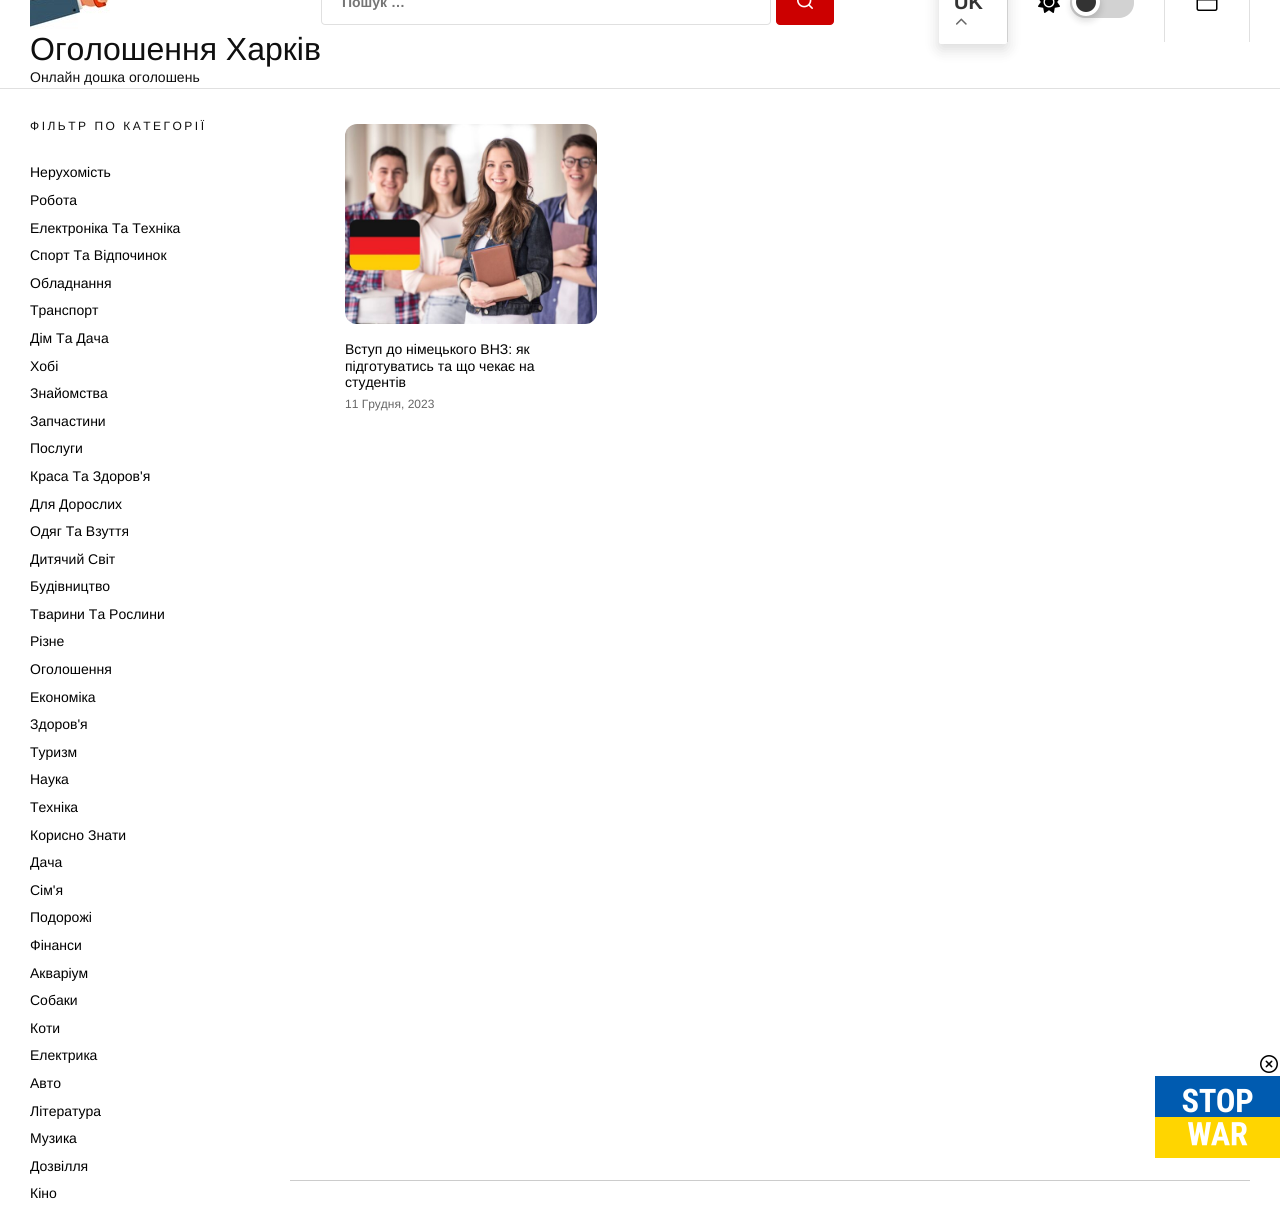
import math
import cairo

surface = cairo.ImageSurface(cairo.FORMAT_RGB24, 1280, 1212)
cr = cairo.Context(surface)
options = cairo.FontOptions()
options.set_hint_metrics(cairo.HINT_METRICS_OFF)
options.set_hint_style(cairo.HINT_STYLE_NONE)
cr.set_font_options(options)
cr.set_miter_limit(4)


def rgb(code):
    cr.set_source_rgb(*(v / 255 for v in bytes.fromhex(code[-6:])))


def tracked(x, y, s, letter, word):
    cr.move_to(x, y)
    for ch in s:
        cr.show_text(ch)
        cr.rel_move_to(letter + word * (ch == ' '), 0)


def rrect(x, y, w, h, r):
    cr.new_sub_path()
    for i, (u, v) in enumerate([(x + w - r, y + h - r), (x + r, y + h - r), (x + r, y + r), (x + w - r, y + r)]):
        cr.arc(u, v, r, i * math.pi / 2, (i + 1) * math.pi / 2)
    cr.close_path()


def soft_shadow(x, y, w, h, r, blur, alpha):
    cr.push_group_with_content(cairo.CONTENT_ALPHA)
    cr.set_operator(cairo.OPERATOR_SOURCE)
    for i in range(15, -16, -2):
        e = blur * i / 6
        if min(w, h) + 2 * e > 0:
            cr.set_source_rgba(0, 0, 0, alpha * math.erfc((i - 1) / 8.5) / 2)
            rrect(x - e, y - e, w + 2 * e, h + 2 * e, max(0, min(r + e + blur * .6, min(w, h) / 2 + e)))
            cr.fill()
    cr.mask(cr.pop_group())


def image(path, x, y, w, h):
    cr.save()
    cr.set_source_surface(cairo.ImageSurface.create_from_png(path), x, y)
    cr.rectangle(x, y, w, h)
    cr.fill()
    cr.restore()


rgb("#ffffff")
cr.paint()
rgb("#e0e0e0")
cr.rectangle(0, 88, 1280, 1)
cr.fill()
rrect(321.5, -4.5, 449, 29, 3.5)
cr.set_line_width(1)
cr.stroke()
rgb("#cc0000")
rrect(776.5, -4.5, 57, 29, 3.5)
cr.fill_preserve()
cr.stroke()
image("img/1.png", 797, 0, 16, 9)
rgb("#000000")
soft_shadow(939, -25, 68, 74, 2, 7.5, 0.15)
rgb("#ffffff")
rrect(939, -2, 68, 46, 2)
cr.fill()
image("img/2.png", 956, 18, 11, 7)
rgb("#e0e0e0")
cr.rectangle(1164, 0, 1, 42)
cr.fill()
cr.set_source_rgba(0, 0, 0, 0.12)
cr.rectangle(1007, 0, 1, 42)
cr.fill()
image("img/3.png", 1038, 0, 22, 13)
rgb("#d2d2d2")
rrect(1070, -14, 64, 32, 15)
cr.fill()
rgb("#000000")
soft_shadow(1072, -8, 28, 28, 14, 4, 0.16)
rgb("#333333")
cr.arc(1086, 2, 12, 0, 2 * math.pi)
cr.fill_preserve()
rgb("#ffffff")
cr.set_line_width(4)
cr.stroke()
rgb("#e0e0e0")
cr.rectangle(1249, 0, 1, 42)
cr.fill()
image("img/4.png", 1196, 0, 22, 11)
image("img/5.png", 30, 0, 80, 29)
image("img/6.png", 345, 124, 252, 200)
rgb("#cccccc")
cr.rectangle(290, 1180, 960, 1)
cr.fill()
image("img/7.png", 1260, 1055, 18, 18)
image("img/8.png", 1155, 1076, 125, 82)
cr.select_font_face("Liberation Sans", cairo.FONT_SLANT_NORMAL, cairo.FONT_WEIGHT_BOLD)
cr.set_font_size(14)
rgb("#757575")
cr.move_to(342, 7)
cr.show_text("Пошук …")
cr.set_font_size(20)
rgb("#333333")
cr.move_to(954, 9)
cr.show_text("UK")
cr.select_font_face("Liberation Sans")
cr.set_font_size(32)
rgb("#0f0f0f")
cr.move_to(30, 60)
cr.show_text("Оголошення Харків")
cr.set_font_size(14)
cr.move_to(30, 82)
cr.show_text("Онлайн дошка оголошень")
cr.set_font_size(12)
tracked(30, 130, "ФІЛЬТР ПО КАТЕГОРІЇ", 2.5, 0)
cr.set_font_size(14)
rgb("#000000")
for x, y, s in [
    (30, 177, "Нерухомість"),
    (30, 205, "Робота"),
    (30, 233, "Електроніка Та Техніка"),
    (30, 260, "Спорт Та Відпочинок"),
    (30, 288, "Обладнання"),
    (30, 315, "Транспорт"),
    (30, 343, "Дім Та Дача"),
    (30, 371, "Хобі"),
    (30, 398, "Знайомства"),
    (30, 426, "Запчастини"),
    (30, 453, "Послуги"),
    (30, 481, "Краса Та Здоров'я"),
    (30, 509, "Для Дорослих"),
    (30, 536, "Одяг Та Взуття"),
    (30, 564, "Дитячий Світ"),
    (30, 591, "Будівництво"),
    (30, 619, "Тварини Та Рослини"),
    (30, 646, "Різне"),
    (30, 674, "Оголошення"),
    (30, 702, "Економіка"),
    (30, 729, "Здоров'я"),
    (30, 757, "Туризм"),
    (30, 784, "Наука"),
    (30, 812, "Техніка"),
    (30, 840, "Корисно Знати"),
    (30, 867, "Дача"),
    (30, 895, "Сім'я"),
    (30, 922, "Подорожі"),
    (30, 950, "Фінанси"),
    (30, 978, "Акваріум"),
    (30, 1005, "Собаки"),
    (30, 1033, "Коти"),
    (30, 1060, "Електрика"),
    (30, 1088, "Авто"),
    (30, 1116, "Література"),
    (30, 1143, "Музика"),
    (30, 1171, "Дозвілля"),
    (30, 1198, "Кіно"),
    (345, 354, "Вступ до німецького ВНЗ: як"),
    (345, 371, "підготуватись та що чекає на"),
    (345, 387, "студентів"),
]:
    cr.move_to(x, y)
    cr.show_text(s)
cr.set_font_size(12)
rgb("#666666")
cr.move_to(345, 408)
cr.show_text("11 Грудня, 2023")
surface.write_to_png("page.png")
